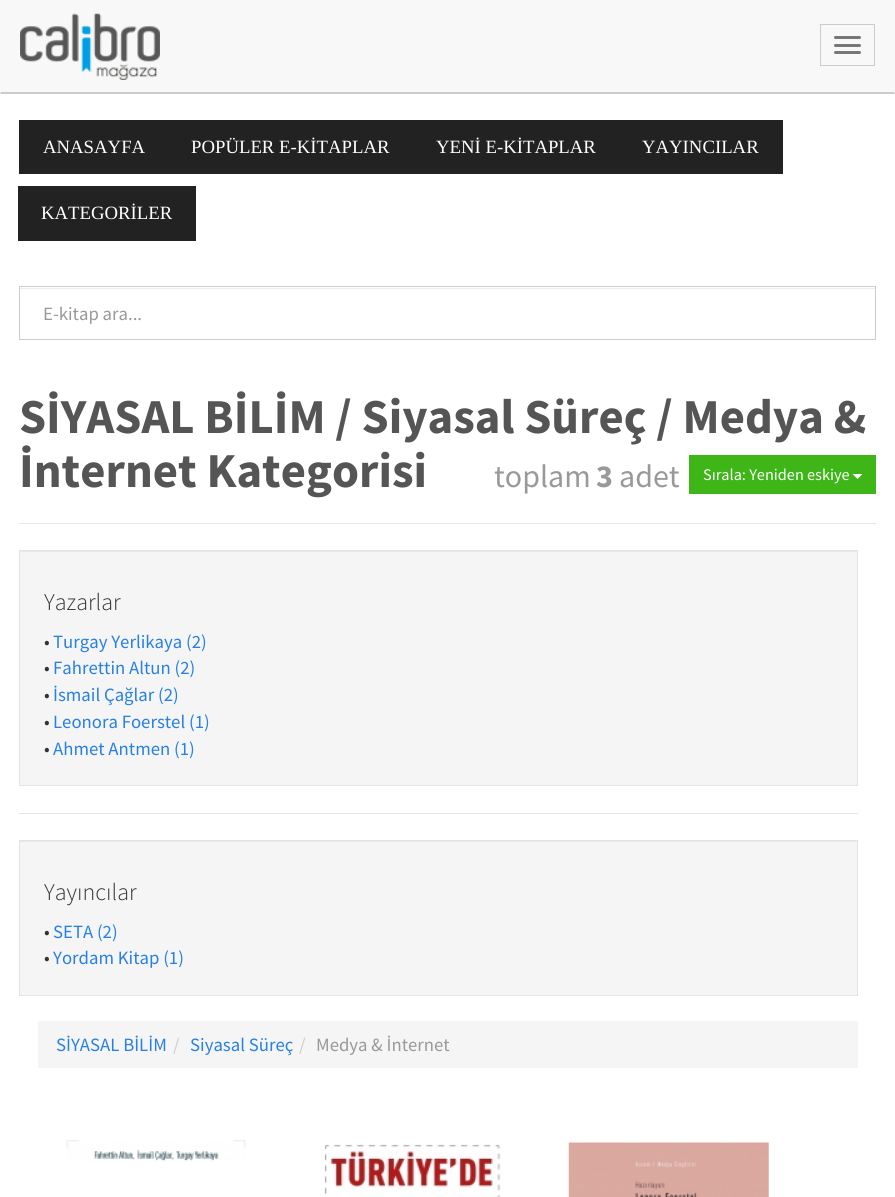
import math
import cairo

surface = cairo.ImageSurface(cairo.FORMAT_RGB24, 895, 1197)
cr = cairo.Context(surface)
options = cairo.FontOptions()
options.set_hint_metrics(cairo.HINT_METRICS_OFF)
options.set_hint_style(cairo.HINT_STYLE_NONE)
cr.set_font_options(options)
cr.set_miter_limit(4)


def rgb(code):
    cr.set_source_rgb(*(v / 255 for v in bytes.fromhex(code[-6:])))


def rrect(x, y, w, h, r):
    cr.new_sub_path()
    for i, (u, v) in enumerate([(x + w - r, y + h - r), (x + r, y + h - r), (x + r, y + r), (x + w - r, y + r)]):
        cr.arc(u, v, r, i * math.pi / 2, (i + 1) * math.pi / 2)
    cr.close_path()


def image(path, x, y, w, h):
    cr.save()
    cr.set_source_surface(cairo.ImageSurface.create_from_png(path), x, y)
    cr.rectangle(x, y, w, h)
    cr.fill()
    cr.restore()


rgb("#ffffff")
cr.paint()
rgb("#f8f8f8")
cr.rectangle(0, 0, 895, 94)
cr.fill()
rgb("#cccccc")
cr.new_path()
cr.move_to(895, 94)
cr.line_to(0, 94)
cr.line_to(1, 92)
cr.line_to(894, 92)
cr.close_path()
cr.fill()
image("img/1.png", 20, 13, 140, 67)
cr.rectangle(820.5, 24.5, 54, 41)
cr.set_line_width(1)
cr.stroke()
rgb("#777777")
rrect(834, 36, 27, 3, 1.5)
cr.fill()
rrect(834, 44, 27, 3, 1.5)
cr.fill()
rrect(834, 51, 27, 3, 1.5)
cr.fill()
for x, y, w, h, color in [
    (19, 120, 764, 54, "#222222"),
    (18, 186, 178, 55, "#222222"),
    (20, 288, 855, 1, "#ececec"),
]:
    rgb(color)
    cr.rectangle(x, y, w, h)
    cr.fill()
cr.rectangle(19.5, 286.5, 856, 53)
rgb("#cccccc")
cr.stroke()
rgb("#e6e6e6")
cr.rectangle(19, 523, 857, 1)
cr.fill()
rgb("#3fb618")
cr.rectangle(689, 455, 187, 39)
cr.fill()
rgb("#ffffff")
cr.new_path()
cr.move_to(852.5, 474)
cr.line_to(862.5, 474)
cr.line_to(857.5, 479)
cr.close_path()
cr.fill()
rgb("#f5f5f5")
cr.rectangle(20, 551, 837, 234)
cr.fill()
rgb("#e9e9e9")
cr.rectangle(20, 551, 836, 1)
cr.fill()
cr.rectangle(19.5, 550.5, 838, 235)
rgb("#e3e3e3")
cr.stroke()
for x, y, w, h, color in [
    (19, 813, 839, 1, "#e6e6e6"),
    (20, 841, 837, 154, "#f5f5f5"),
    (20, 841, 836, 1, "#e9e9e9"),
]:
    rgb(color)
    cr.rectangle(x, y, w, h)
    cr.fill()
cr.rectangle(19.5, 840.5, 838, 155)
rgb("#e3e3e3")
cr.stroke()
rgb("#f5f5f5")
cr.rectangle(38, 1021, 820, 47)
cr.fill()
image("img/2.png", 66, 1140, 180, 22)
image("img/3.png", 324, 1144, 177, 53)
image("img/4.png", 568, 1142, 201, 55)
cr.select_font_face("Liberation Serif")
cr.set_font_size(18.75)
rgb("#ffffff")
for x, y, s in [
    (43, 153, "ANASAYFA"),
    (191, 153, "POPÜLER E-KİTAPLAR"),
    (436, 153, "YENİ E-KİTAPLAR"),
    (642, 153, "YAYINCILAR"),
    (41, 219, "KATEGORİLER"),
]:
    cr.move_to(x, y)
    cr.show_text(s)
cr.select_font_face("Source Sans Pro")
rgb("#999999")
cr.move_to(43, 320)
cr.show_text("E-kitap ara...")
cr.select_font_face("Source Sans Pro", cairo.FONT_SLANT_NORMAL, cairo.FONT_WEIGHT_BOLD)
cr.set_font_size(48.75)
rgb("#555555")
cr.move_to(19, 433)
cr.show_text("SİYASAL BİLİM / Siyasal Süreç / Medya &")
cr.move_to(19, 487)
cr.show_text("İnternet Kategorisi")
cr.select_font_face("Source Sans Pro")
cr.set_font_size(32)
rgb("#999999")
cr.move_to(494, 487)
cr.show_text("toplam")
cr.select_font_face("Source Sans Pro", cairo.FONT_SLANT_NORMAL, cairo.FONT_WEIGHT_BOLD)
cr.move_to(596, 487)
cr.show_text("3")
cr.select_font_face("Source Sans Pro")
cr.move_to(619, 487)
cr.show_text("adet")
cr.set_font_size(16.25)
rgb("#ffffff")
cr.move_to(703, 480)
cr.show_text("Sırala: Yeniden eskiye")
cr.select_font_face("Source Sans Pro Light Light")
cr.set_font_size(24)
rgb("#333333")
cr.move_to(44, 610)
cr.show_text("Yazarlar")
cr.select_font_face("Source Sans Pro")
cr.set_font_size(18.75)
cr.move_to(44, 648)
cr.show_text("•")
rgb("#2780e3")
cr.move_to(53, 648)
cr.show_text("Turgay Yerlikaya (2)")
rgb("#333333")
cr.move_to(44, 674)
cr.show_text("•")
rgb("#2780e3")
cr.move_to(53, 674)
cr.show_text("Fahrettin Altun (2)")
rgb("#333333")
cr.move_to(44, 701)
cr.show_text("•")
rgb("#2780e3")
cr.move_to(53, 701)
cr.show_text("İsmail Çağlar (2)")
rgb("#333333")
cr.move_to(44, 728)
cr.show_text("•")
rgb("#2780e3")
cr.move_to(53, 728)
cr.show_text("Leonora Foerstel (1)")
rgb("#333333")
cr.move_to(44, 755)
cr.show_text("•")
rgb("#2780e3")
cr.move_to(53, 755)
cr.show_text("Ahmet Antmen (1)")
cr.select_font_face("Source Sans Pro Light Light")
cr.set_font_size(24)
rgb("#333333")
cr.move_to(44, 900)
cr.show_text("Yayıncılar")
cr.select_font_face("Source Sans Pro")
cr.set_font_size(18.75)
cr.move_to(44, 938)
cr.show_text("•")
rgb("#2780e3")
cr.move_to(53, 938)
cr.show_text("SETA (2)")
rgb("#333333")
cr.move_to(44, 964)
cr.show_text("•")
rgb("#2780e3")
cr.move_to(53, 964)
cr.show_text("Yordam Kitap (1)")
cr.move_to(56, 1051)
cr.show_text("SİYASAL BİLİM")
rgb("#cccccc")
cr.move_to(173, 1051)
cr.show_text("/")
rgb("#2780e3")
cr.move_to(190, 1051)
cr.show_text("Siyasal Süreç")
rgb("#cccccc")
cr.move_to(299, 1051)
cr.show_text("/")
rgb("#999999")
cr.move_to(316, 1051)
cr.show_text("Medya & İnternet")
surface.write_to_png("page.png")
